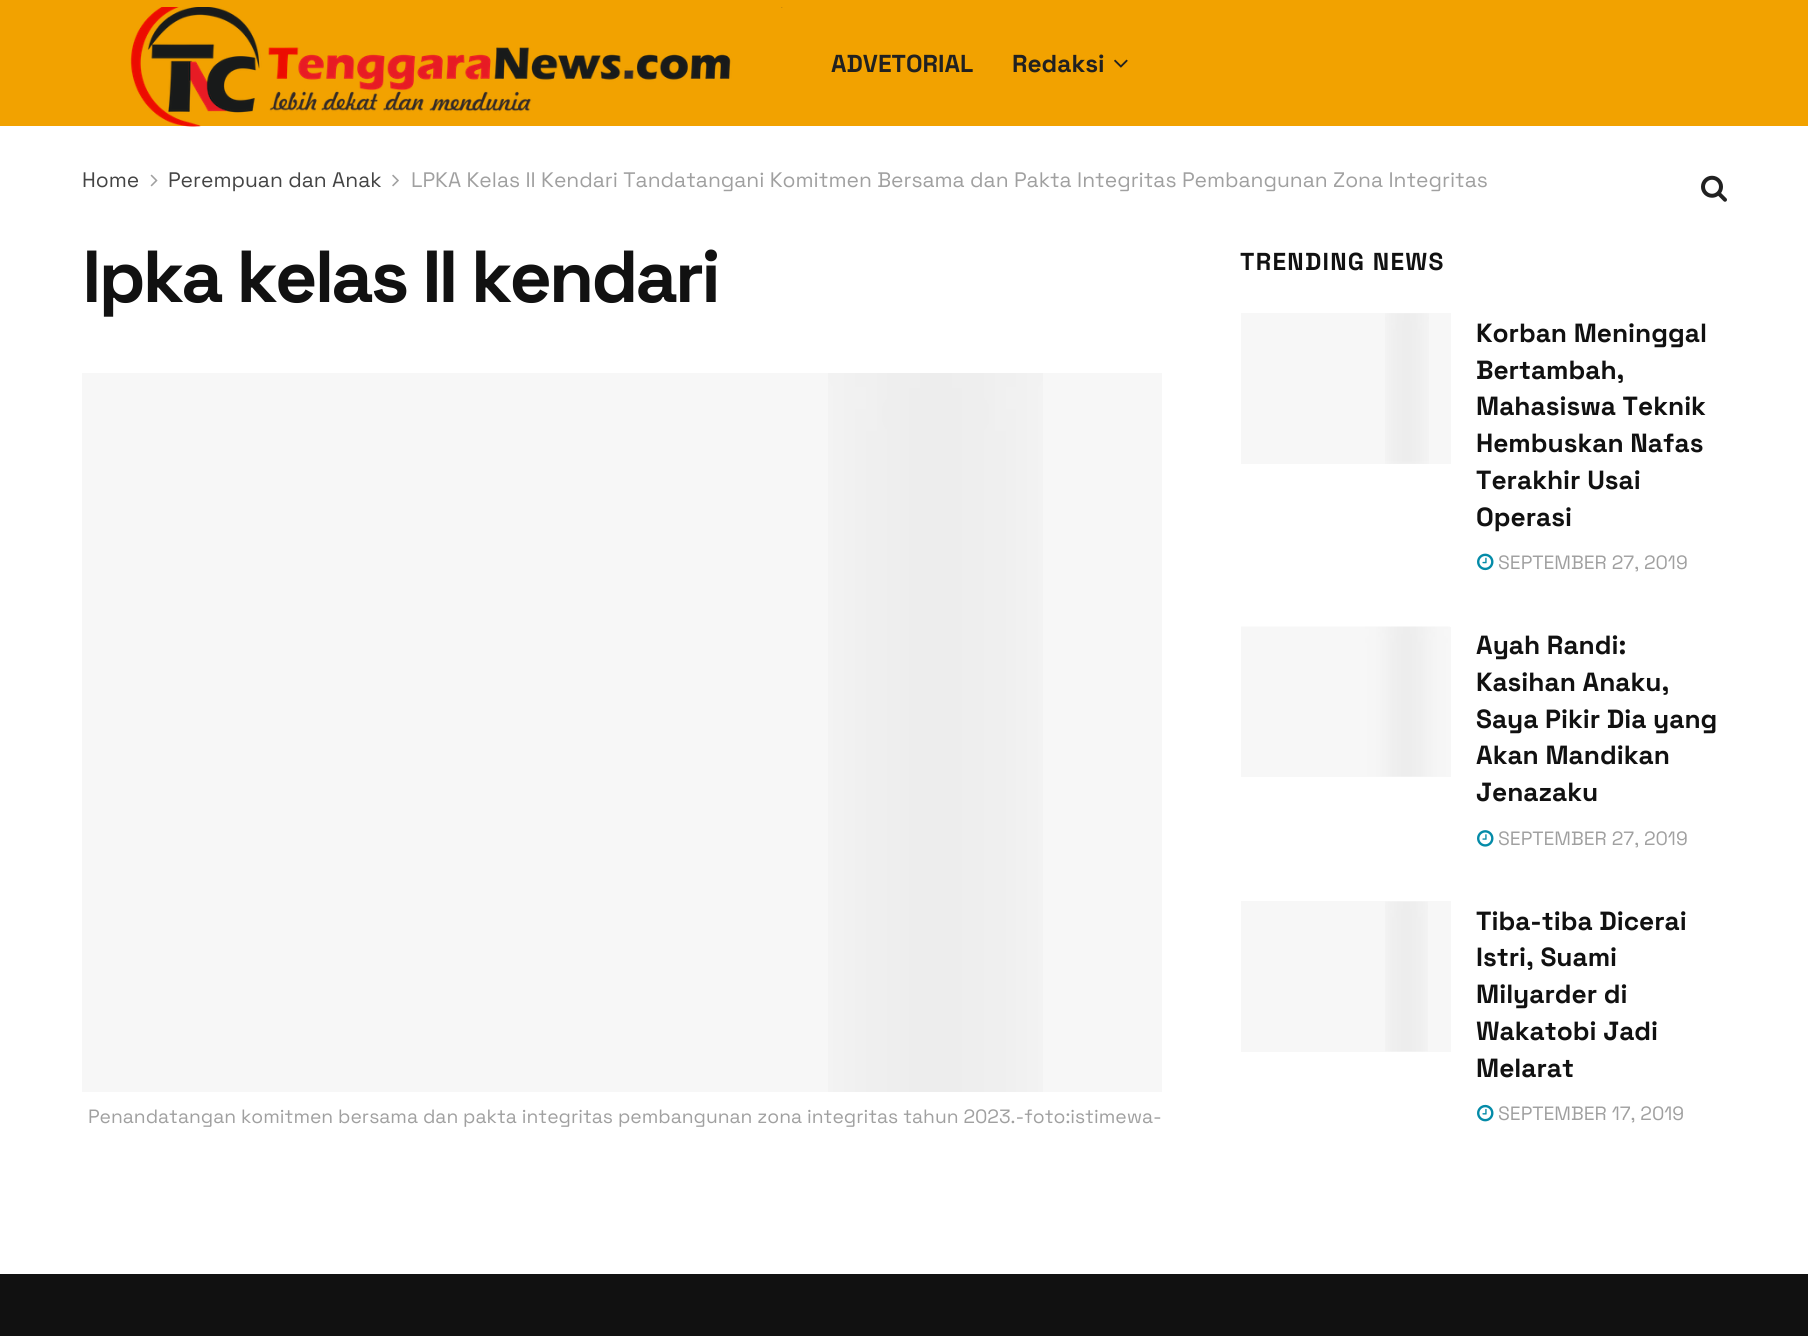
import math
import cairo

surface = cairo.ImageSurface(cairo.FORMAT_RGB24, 1808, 1336)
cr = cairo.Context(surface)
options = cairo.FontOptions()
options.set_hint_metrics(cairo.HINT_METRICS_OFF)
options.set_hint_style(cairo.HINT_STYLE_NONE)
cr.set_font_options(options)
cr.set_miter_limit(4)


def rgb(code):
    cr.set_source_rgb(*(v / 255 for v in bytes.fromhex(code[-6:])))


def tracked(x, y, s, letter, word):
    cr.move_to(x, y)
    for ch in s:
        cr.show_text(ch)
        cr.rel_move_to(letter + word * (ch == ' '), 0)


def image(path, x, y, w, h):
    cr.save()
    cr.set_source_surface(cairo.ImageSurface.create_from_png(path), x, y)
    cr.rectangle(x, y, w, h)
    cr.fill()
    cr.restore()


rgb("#ffffff")
cr.paint()
rgb("#f2a200")
cr.rectangle(0, 0, 1808, 126)
cr.fill()
image("img/1.png", 130, 7, 653, 120)
image("img/2.png", 1114, 59, 14, 9)
image("img/3.png", 1701, 175, 26, 27)
image("img/4.png", 150, 174, 8, 13)
image("img/5.png", 392, 174, 7, 13)
rgb("#f7f7f7")
cr.rectangle(82, 373, 1080, 719)
cr.fill()
image("img/6.png", 828, 373, 215, 719)
cr.rectangle(1241, 313, 210, 151)
cr.fill()
image("img/7.png", 1385, 313, 44, 151)
image("img/8.png", 1477, 553, 17, 18)
cr.rectangle(1241, 627, 210, 150)
cr.fill()
image("img/9.png", 1241, 626, 209, 151)
image("img/10.png", 1477, 830, 17, 17)
cr.rectangle(1241, 901, 210, 151)
cr.fill()
image("img/11.png", 1385, 901, 43, 151)
image("img/12.png", 1477, 1104, 17, 18)
rgb("#111111")
cr.rectangle(0, 1274, 1808, 62)
cr.fill()
cr.select_font_face("Space Grotesk", cairo.FONT_SLANT_NORMAL, cairo.FONT_WEIGHT_BOLD)
cr.set_font_size(24.5)
rgb("#212121")
cr.move_to(831, 72)
cr.show_text("ADVETORIAL")
cr.move_to(1012, 72)
cr.show_text("Redaksi")
cr.select_font_face("Space Grotesk")
cr.set_font_size(21)
rgb("#444444")
cr.move_to(82, 187)
cr.show_text("Home")
cr.move_to(168, 187)
cr.show_text("Perempuan dan Anak")
rgb("#a0a0a0")
cr.move_to(411, 187)
cr.show_text("LPKA Kelas II Kendari Tandatangani Komitmen Bersama dan Pakta Integritas Pembangunan Zona Integritas")
cr.select_font_face("Space Grotesk", cairo.FONT_SLANT_NORMAL, cairo.FONT_WEIGHT_BOLD)
cr.set_font_size(73.5)
rgb("#111111")
tracked(82, 302, "lpka kelas II kendari", -2.9, 0)
cr.select_font_face("Space Grotesk")
cr.set_font_size(19.25)
rgb("#a0a0a0")
cr.move_to(88, 1123)
cr.show_text("Penandatangan komitmen bersama dan pakta integritas pembangunan zona integritas tahun 2023.-foto:istimewa-")
cr.select_font_face("Space Grotesk", cairo.FONT_SLANT_NORMAL, cairo.FONT_WEIGHT_BOLD)
cr.set_font_size(24.5)
rgb("#111111")
tracked(1240, 270, "TRENDING NEWS", 1.25, 0)
cr.set_font_size(26.25)
for x, y, s in [
    (1476, 342, "Korban Meninggal"),
    (1476, 379, "Bertambah,"),
    (1476, 415, "Mahasiswa Teknik"),
    (1476, 452, "Hembuskan Nafas"),
    (1476, 489, "Terakhir Usai"),
    (1476, 526, "Operasi"),
]:
    cr.move_to(x, y)
    cr.show_text(s)
cr.select_font_face("Space Grotesk")
cr.set_font_size(19.25)
rgb("#a0a0a0")
cr.move_to(1498, 569)
cr.show_text("SEPTEMBER 27, 2019")
cr.select_font_face("Space Grotesk", cairo.FONT_SLANT_NORMAL, cairo.FONT_WEIGHT_BOLD)
cr.set_font_size(26.25)
rgb("#111111")
for x, y, s in [
    (1476, 654, "Ayah Randi:"),
    (1476, 691, "Kasihan Anaku,"),
    (1476, 728, "Saya Pikir Dia yang"),
    (1476, 764, "Akan Mandikan"),
    (1476, 801, "Jenazaku"),
]:
    cr.move_to(x, y)
    cr.show_text(s)
cr.select_font_face("Space Grotesk")
cr.set_font_size(19.25)
rgb("#a0a0a0")
cr.move_to(1498, 845)
cr.show_text("SEPTEMBER 27, 2019")
cr.select_font_face("Space Grotesk", cairo.FONT_SLANT_NORMAL, cairo.FONT_WEIGHT_BOLD)
cr.set_font_size(26.25)
rgb("#111111")
for x, y, s in [
    (1476, 930, "Tiba-tiba Dicerai"),
    (1476, 966, "Istri, Suami"),
    (1476, 1003, "Milyarder di"),
    (1476, 1040, "Wakatobi Jadi"),
    (1476, 1077, "Melarat"),
]:
    cr.move_to(x, y)
    cr.show_text(s)
cr.select_font_face("Space Grotesk")
cr.set_font_size(19.25)
rgb("#a0a0a0")
cr.move_to(1498, 1120)
cr.show_text("SEPTEMBER 17, 2019")
surface.write_to_png("page.png")
